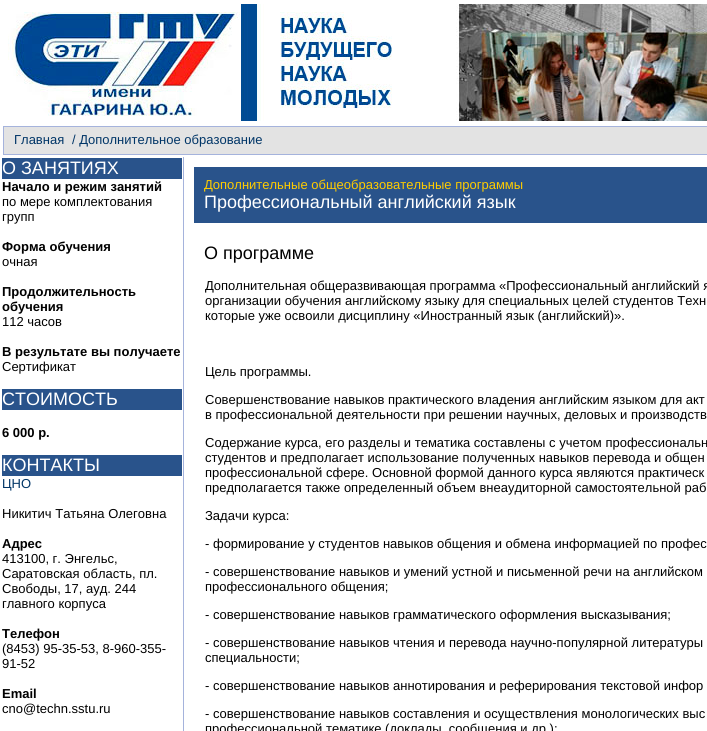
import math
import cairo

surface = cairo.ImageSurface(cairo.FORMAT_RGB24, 707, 731)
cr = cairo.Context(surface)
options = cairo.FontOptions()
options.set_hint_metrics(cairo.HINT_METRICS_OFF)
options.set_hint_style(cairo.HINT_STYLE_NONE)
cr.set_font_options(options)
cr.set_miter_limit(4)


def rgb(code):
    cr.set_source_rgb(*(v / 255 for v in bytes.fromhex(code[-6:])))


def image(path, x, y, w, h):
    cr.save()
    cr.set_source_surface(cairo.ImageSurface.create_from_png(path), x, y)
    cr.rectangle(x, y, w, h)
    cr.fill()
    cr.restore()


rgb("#ffffff")
cr.paint()
image("img/1.png", 8, 4, 699, 117)
rgb("#e3e3e3")
cr.rectangle(3.5, 126.5, 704, 28)
cr.fill_preserve()
rgb("#a5b3dc")
cr.set_line_width(1)
cr.stroke()
for x, y, w, h, color in [
    (183, 157, 1, 574, "#a5b3dc"),
    (2, 158, 180, 21, "#29538b"),
    (2, 389, 180, 21, "#29538b"),
    (2, 455, 180, 21, "#29538b"),
    (194, 167, 513, 56, "#29538b"),
]:
    rgb(color)
    cr.rectangle(x, y, w, h)
    cr.fill()
cr.select_font_face("Liberation Sans")
cr.set_font_size(13)
rgb("#003567")
cr.move_to(14, 144)
cr.show_text("Главная")
cr.move_to(72, 144)
cr.show_text("/ Дополнительное образование")
cr.set_font_size(18)
rgb("#ffffff")
cr.move_to(2, 174)
cr.show_text("О ЗАНЯТИЯХ")
cr.select_font_face("Liberation Sans", cairo.FONT_SLANT_NORMAL, cairo.FONT_WEIGHT_BOLD)
cr.set_font_size(13)
rgb("#000000")
cr.move_to(2, 191)
cr.show_text("Начало и режим занятий")
cr.select_font_face("Liberation Sans")
cr.move_to(2, 206)
cr.show_text("по мере комплектования")
cr.move_to(2, 221)
cr.show_text("групп")
cr.select_font_face("Liberation Sans", cairo.FONT_SLANT_NORMAL, cairo.FONT_WEIGHT_BOLD)
cr.move_to(2, 251)
cr.show_text("Форма обучения")
cr.select_font_face("Liberation Sans")
cr.move_to(2, 266)
cr.show_text("очная")
cr.select_font_face("Liberation Sans", cairo.FONT_SLANT_NORMAL, cairo.FONT_WEIGHT_BOLD)
cr.move_to(2, 296)
cr.show_text("Продолжительность")
cr.move_to(2, 311)
cr.show_text("обучения")
cr.select_font_face("Liberation Sans")
cr.move_to(2, 326)
cr.show_text("112 часов")
cr.select_font_face("Liberation Sans", cairo.FONT_SLANT_NORMAL, cairo.FONT_WEIGHT_BOLD)
cr.move_to(2, 356)
cr.show_text("В результате вы получаете")
cr.select_font_face("Liberation Sans")
cr.move_to(2, 371)
cr.show_text("Сертификат")
cr.set_font_size(18)
rgb("#ffffff")
cr.move_to(2, 405)
cr.show_text("СТОИМОСТЬ")
cr.select_font_face("Liberation Sans", cairo.FONT_SLANT_NORMAL, cairo.FONT_WEIGHT_BOLD)
cr.set_font_size(13)
rgb("#000000")
cr.move_to(2, 437)
cr.show_text("6 000 р.")
cr.select_font_face("Liberation Sans")
cr.set_font_size(18)
rgb("#ffffff")
cr.move_to(2, 471)
cr.show_text("КОНТАКТЫ")
cr.set_font_size(13)
rgb("#003567")
cr.move_to(2, 488)
cr.show_text("ЦНО")
rgb("#000000")
cr.move_to(2, 518)
cr.show_text("Никитич Татьяна Олеговна")
cr.select_font_face("Liberation Sans", cairo.FONT_SLANT_NORMAL, cairo.FONT_WEIGHT_BOLD)
cr.move_to(2, 548)
cr.show_text("Адрес")
cr.select_font_face("Liberation Sans")
for x, y, s in [
    (2, 563, "413100, г. Энгельс,"),
    (2, 578, "Саратовская область, пл."),
    (2, 593, "Свободы, 17, ауд. 244"),
    (2, 608, "главного корпуса"),
]:
    cr.move_to(x, y)
    cr.show_text(s)
cr.select_font_face("Liberation Sans", cairo.FONT_SLANT_NORMAL, cairo.FONT_WEIGHT_BOLD)
cr.move_to(2, 638)
cr.show_text("Телефон")
cr.select_font_face("Liberation Sans")
cr.move_to(2, 653)
cr.show_text("(8453) 95-35-53, 8-960-355-")
cr.move_to(2, 668)
cr.show_text("91-52")
cr.select_font_face("Liberation Sans", cairo.FONT_SLANT_NORMAL, cairo.FONT_WEIGHT_BOLD)
cr.move_to(2, 698)
cr.show_text("Email")
cr.select_font_face("Liberation Sans")
cr.move_to(2, 713)
cr.show_text("cno@techn.sstu.ru")
rgb("#ffcc00")
cr.move_to(204, 189)
cr.show_text("Дополнительные общеобразовательные программы")
cr.set_font_size(18)
rgb("#ffffff")
cr.move_to(204, 208)
cr.show_text("Профессиональный английский язык")
rgb("#000000")
cr.move_to(204, 259)
cr.show_text("О программе")
cr.set_font_size(13)
for x, y, s in [
    (205, 290, "Дополнительная общеразвивающая программа «Профессиональный английский я"),
    (205, 305, "организации обучения английскому языку для специальных целей студентов Техн"),
    (205, 320, "которые уже освоили дисциплину «Иностранный язык (английский)»."),
    (205, 376, "Цель программы."),
    (205, 404, "Совершенствование навыков практического владения английским языком для акт"),
    (205, 419, "в профессиональной деятельности при решении научных, деловых и производств"),
    (205, 447, "Содержание курса, его разделы и тематика составлены с учетом профессиональн"),
    (205, 462, "студентов и предполагает использование полученных навыков перевода и общен"),
    (205, 477, "профессиональной сфере. Основной формой данного курса являются практическ"),
    (205, 492, "предполагается также определенный объем внеаудиторной самостоятельной раб"),
    (205, 520, "Задачи курса:"),
    (205, 548, "- формирование у студентов навыков общения и обмена информацией по профес"),
    (205, 576, "- совершенствование навыков и умений устной и письменной речи на английском"),
    (205, 591, "профессионального общения;"),
    (205, 619, "- совершенствование навыков грамматического оформления высказывания;"),
    (205, 647, "- совершенствование навыков чтения и перевода научно-популярной литературы"),
    (205, 662, "специальности;"),
    (205, 690, "- совершенствование навыков аннотирования и реферирования текстовой инфор"),
    (205, 718, "- совершенствование навыков составления и осуществления монологических выс"),
    (205, 733, "профессиональной тематике (доклады, сообщения и др.);"),
]:
    cr.move_to(x, y)
    cr.show_text(s)
surface.write_to_png("page.png")
